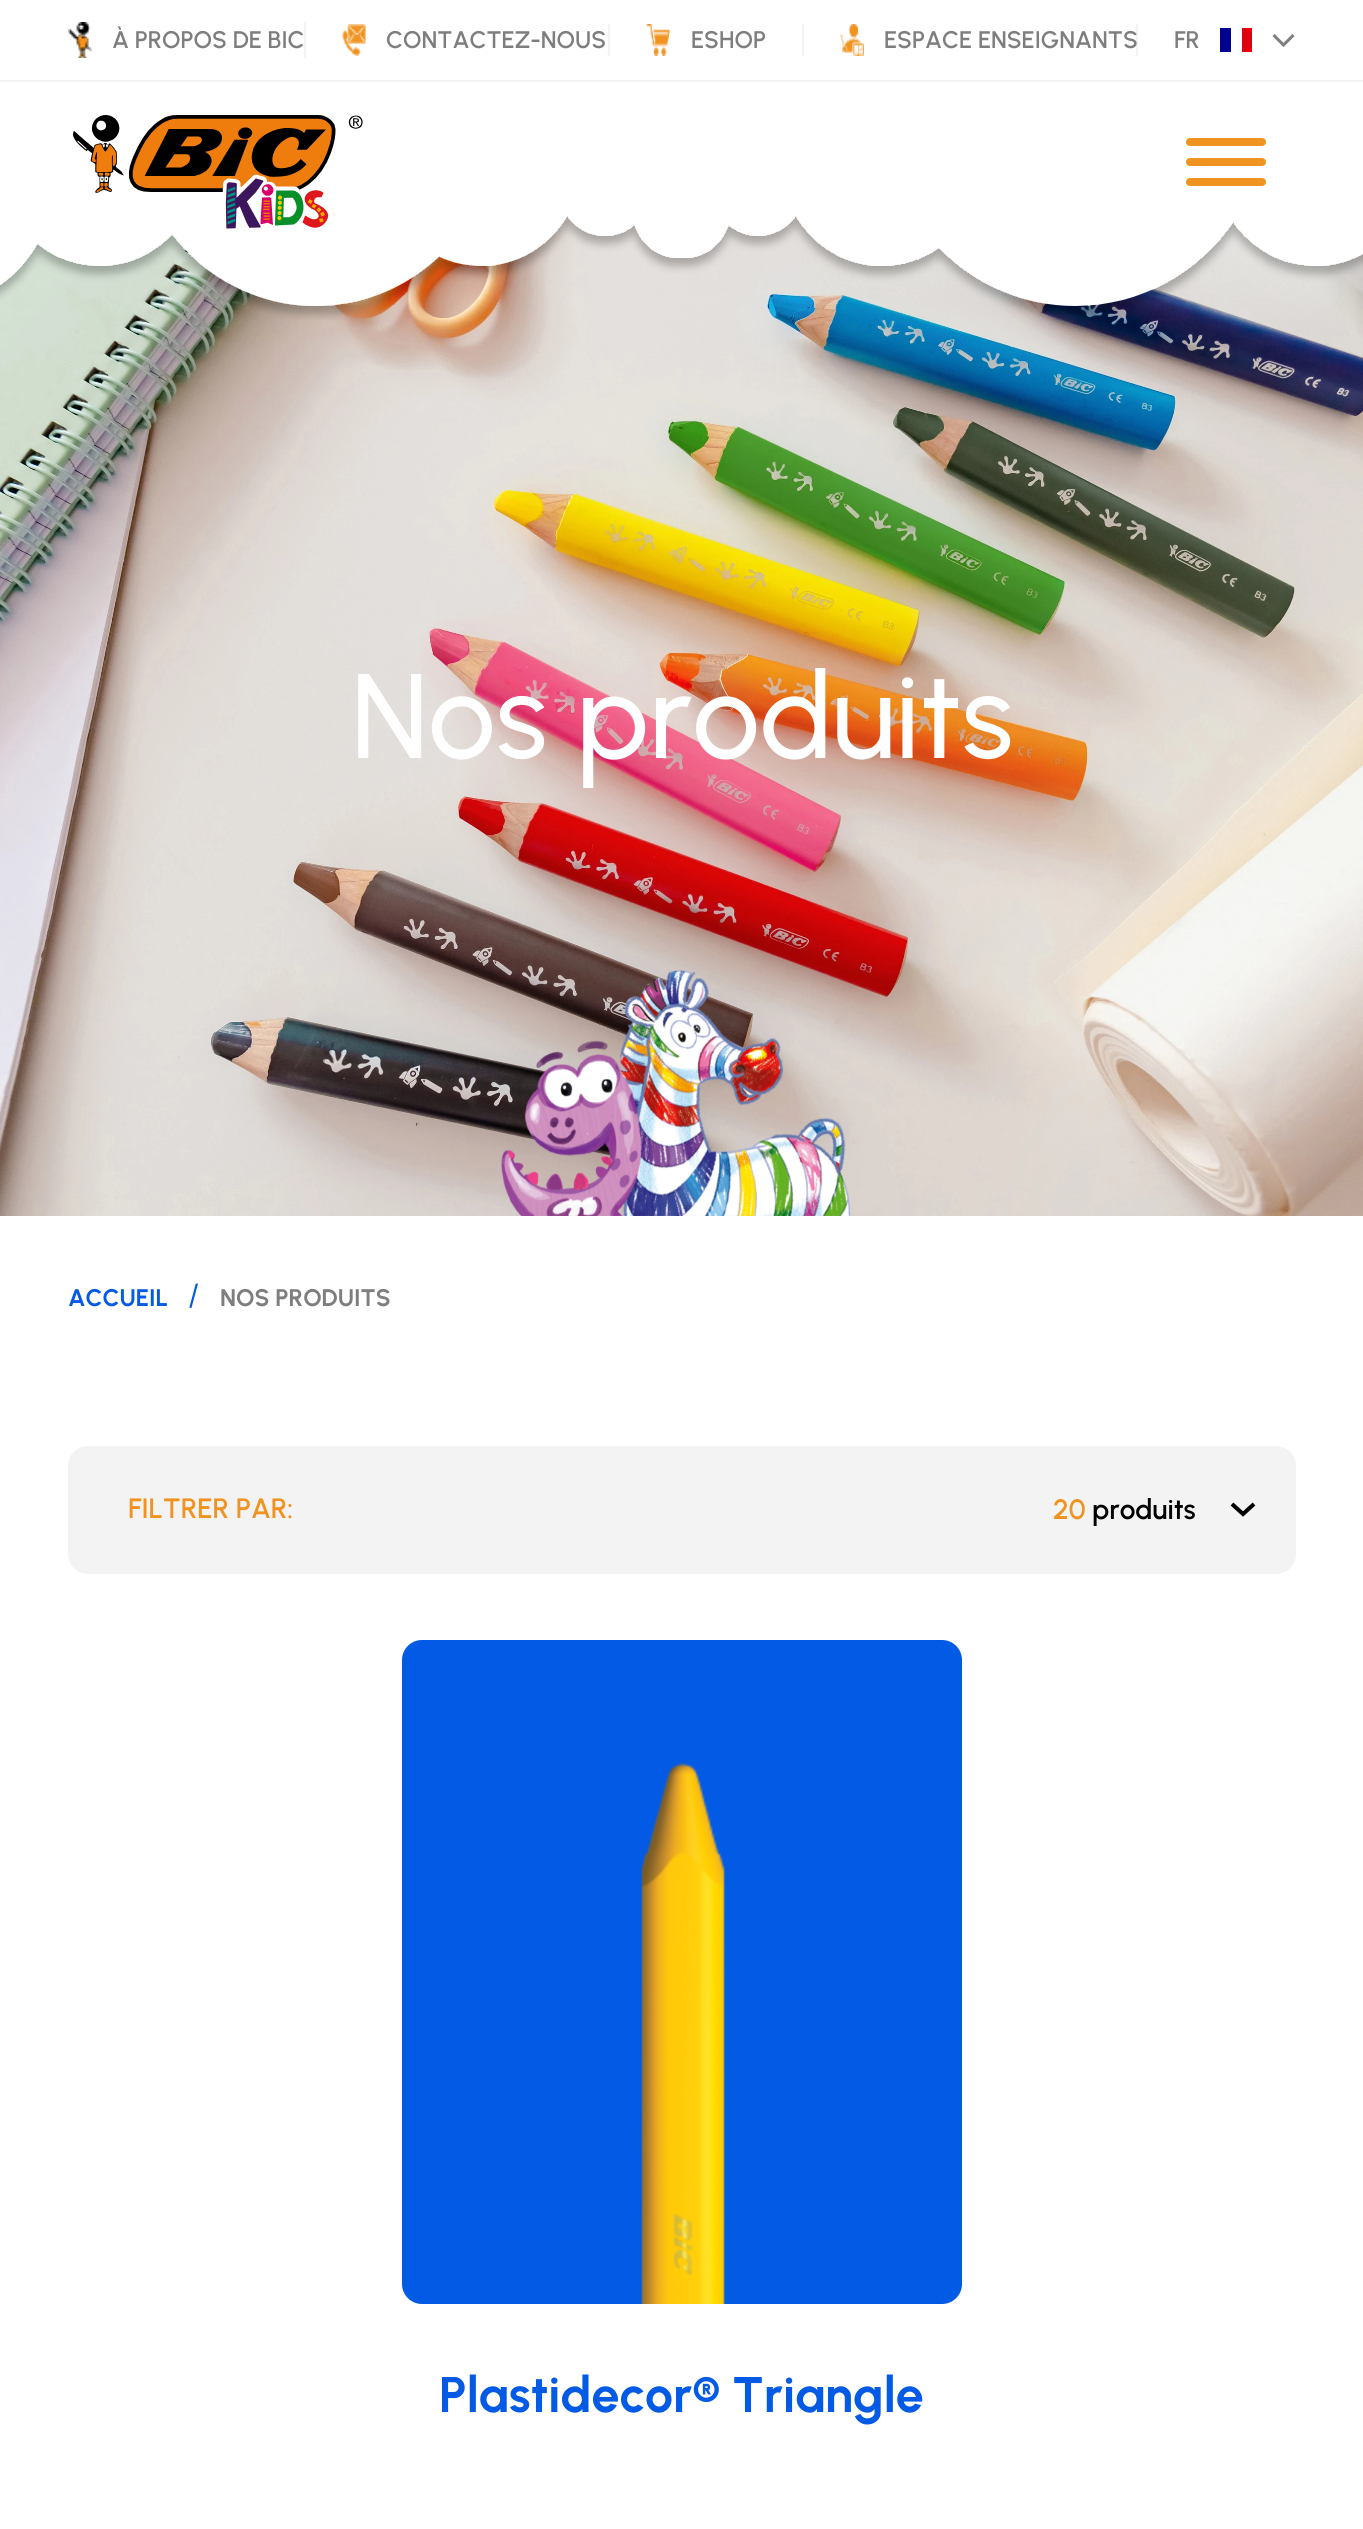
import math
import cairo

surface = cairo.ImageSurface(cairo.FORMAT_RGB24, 1363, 2529)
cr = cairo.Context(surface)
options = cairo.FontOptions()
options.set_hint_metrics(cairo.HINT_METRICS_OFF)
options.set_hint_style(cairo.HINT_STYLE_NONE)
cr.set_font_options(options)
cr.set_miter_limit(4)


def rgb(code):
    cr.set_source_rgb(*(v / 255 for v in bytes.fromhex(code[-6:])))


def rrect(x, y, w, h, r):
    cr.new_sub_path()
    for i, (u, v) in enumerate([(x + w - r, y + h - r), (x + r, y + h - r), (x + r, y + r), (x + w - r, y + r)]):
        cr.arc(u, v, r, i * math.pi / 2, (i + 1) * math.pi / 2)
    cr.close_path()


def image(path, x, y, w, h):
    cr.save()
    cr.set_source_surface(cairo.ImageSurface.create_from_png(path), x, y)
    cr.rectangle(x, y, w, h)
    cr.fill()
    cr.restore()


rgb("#ffffff")
cr.paint()
rgb("#f3f3f3")
cr.rectangle(0, 80, 1363, 2)
cr.fill()
cr.rectangle(304, 22, 2, 36)
cr.fill()
image("img/1.png", 68, 22, 24, 36)
cr.rectangle(608, 24, 2, 32)
cr.fill()
image("img/2.png", 342, 24, 24, 32)
cr.rectangle(802, 24, 2, 32)
cr.fill()
image("img/3.png", 646, 24, 24, 32)
cr.rectangle(1136, 24, 2, 32)
cr.fill()
image("img/4.png", 840, 24, 24, 32)
rgb("#000091")
cr.rectangle(1220, 28, 11, 24)
cr.fill()
rgb("#e1000f")
cr.rectangle(1242, 28, 10, 24)
cr.fill()
cr.new_path()
cr.move_to(1293.5, 35)
cr.line_to(1283.5, 45)
cr.line_to(1273.5, 35)
rgb("#7e7e7e")
cr.set_line_width(3)
cr.stroke()
image("img/7.png", 0, 216, 1363, 1000)
image("img/5.png", 0, 216, 1363, 104)
image("img/6.png", 73, 115, 290, 114)
rgb("#f19321")
rrect(1186, 158, 80, 8, 4)
cr.fill()
rrect(1186, 138, 80, 8, 4)
cr.fill()
rrect(1186, 178, 80, 8, 4)
cr.fill()
image("img/8.png", 501, 970, 350, 246)
rgb("#f3f3f3")
rrect(68, 1446, 1228, 128, 20)
cr.fill()
cr.new_path()
cr.move_to(1254, 1504)
cr.line_to(1243, 1514)
cr.line_to(1232, 1504)
rgb("#000000")
cr.set_line_width(4)
cr.stroke()
rgb("#035ae5")
rrect(402, 1640, 560, 664, 20)
cr.fill()
image("img/9.png", 641, 1763, 84, 541)
cr.select_font_face("Urbanist SemiBold")
cr.set_font_size(24)
rgb("#7e7e7e")
for x, y, s in [
    (112, 48, "À PROPOS DE BIC"),
    (386, 48, "CONTACTEZ-NOUS"),
    (691, 48, "ESHOP"),
    (884, 48, "ESPACE ENSEIGNANTS"),
    (1174, 48, "FR"),
]:
    cr.move_to(x, y)
    cr.show_text(s)
cr.select_font_face("Urbanist Medium")
cr.set_font_size(120)
rgb("#ffffff")
cr.move_to(351, 758)
cr.show_text("Nos produits")
cr.select_font_face("Urbanist", cairo.FONT_SLANT_NORMAL, cairo.FONT_WEIGHT_BOLD)
cr.set_font_size(24)
rgb("#035ae5")
cr.move_to(68, 1306)
cr.show_text("ACCUEIL")
cr.select_font_face("Urbanist")
cr.set_font_size(32)
cr.move_to(188, 1306)
cr.show_text("/")
cr.select_font_face("Urbanist", cairo.FONT_SLANT_NORMAL, cairo.FONT_WEIGHT_BOLD)
cr.set_font_size(24)
rgb("#7e7e7e")
cr.move_to(220, 1306)
cr.show_text("NOS PRODUITS")
cr.select_font_face("Urbanist SemiBold")
cr.set_font_size(28)
rgb("#f19321")
cr.move_to(128, 1518)
cr.show_text("FILTRER PAR:")
cr.move_to(1053, 1519)
cr.show_text("20")
rgb("#000000")
cr.move_to(1092, 1519)
cr.show_text("produits")
cr.select_font_face("Urbanist", cairo.FONT_SLANT_NORMAL, cairo.FONT_WEIGHT_BOLD)
cr.set_font_size(50)
rgb("#035ae5")
cr.move_to(439, 2412)
cr.show_text("Plastidecor® Triangle")
surface.write_to_png("page.png")
